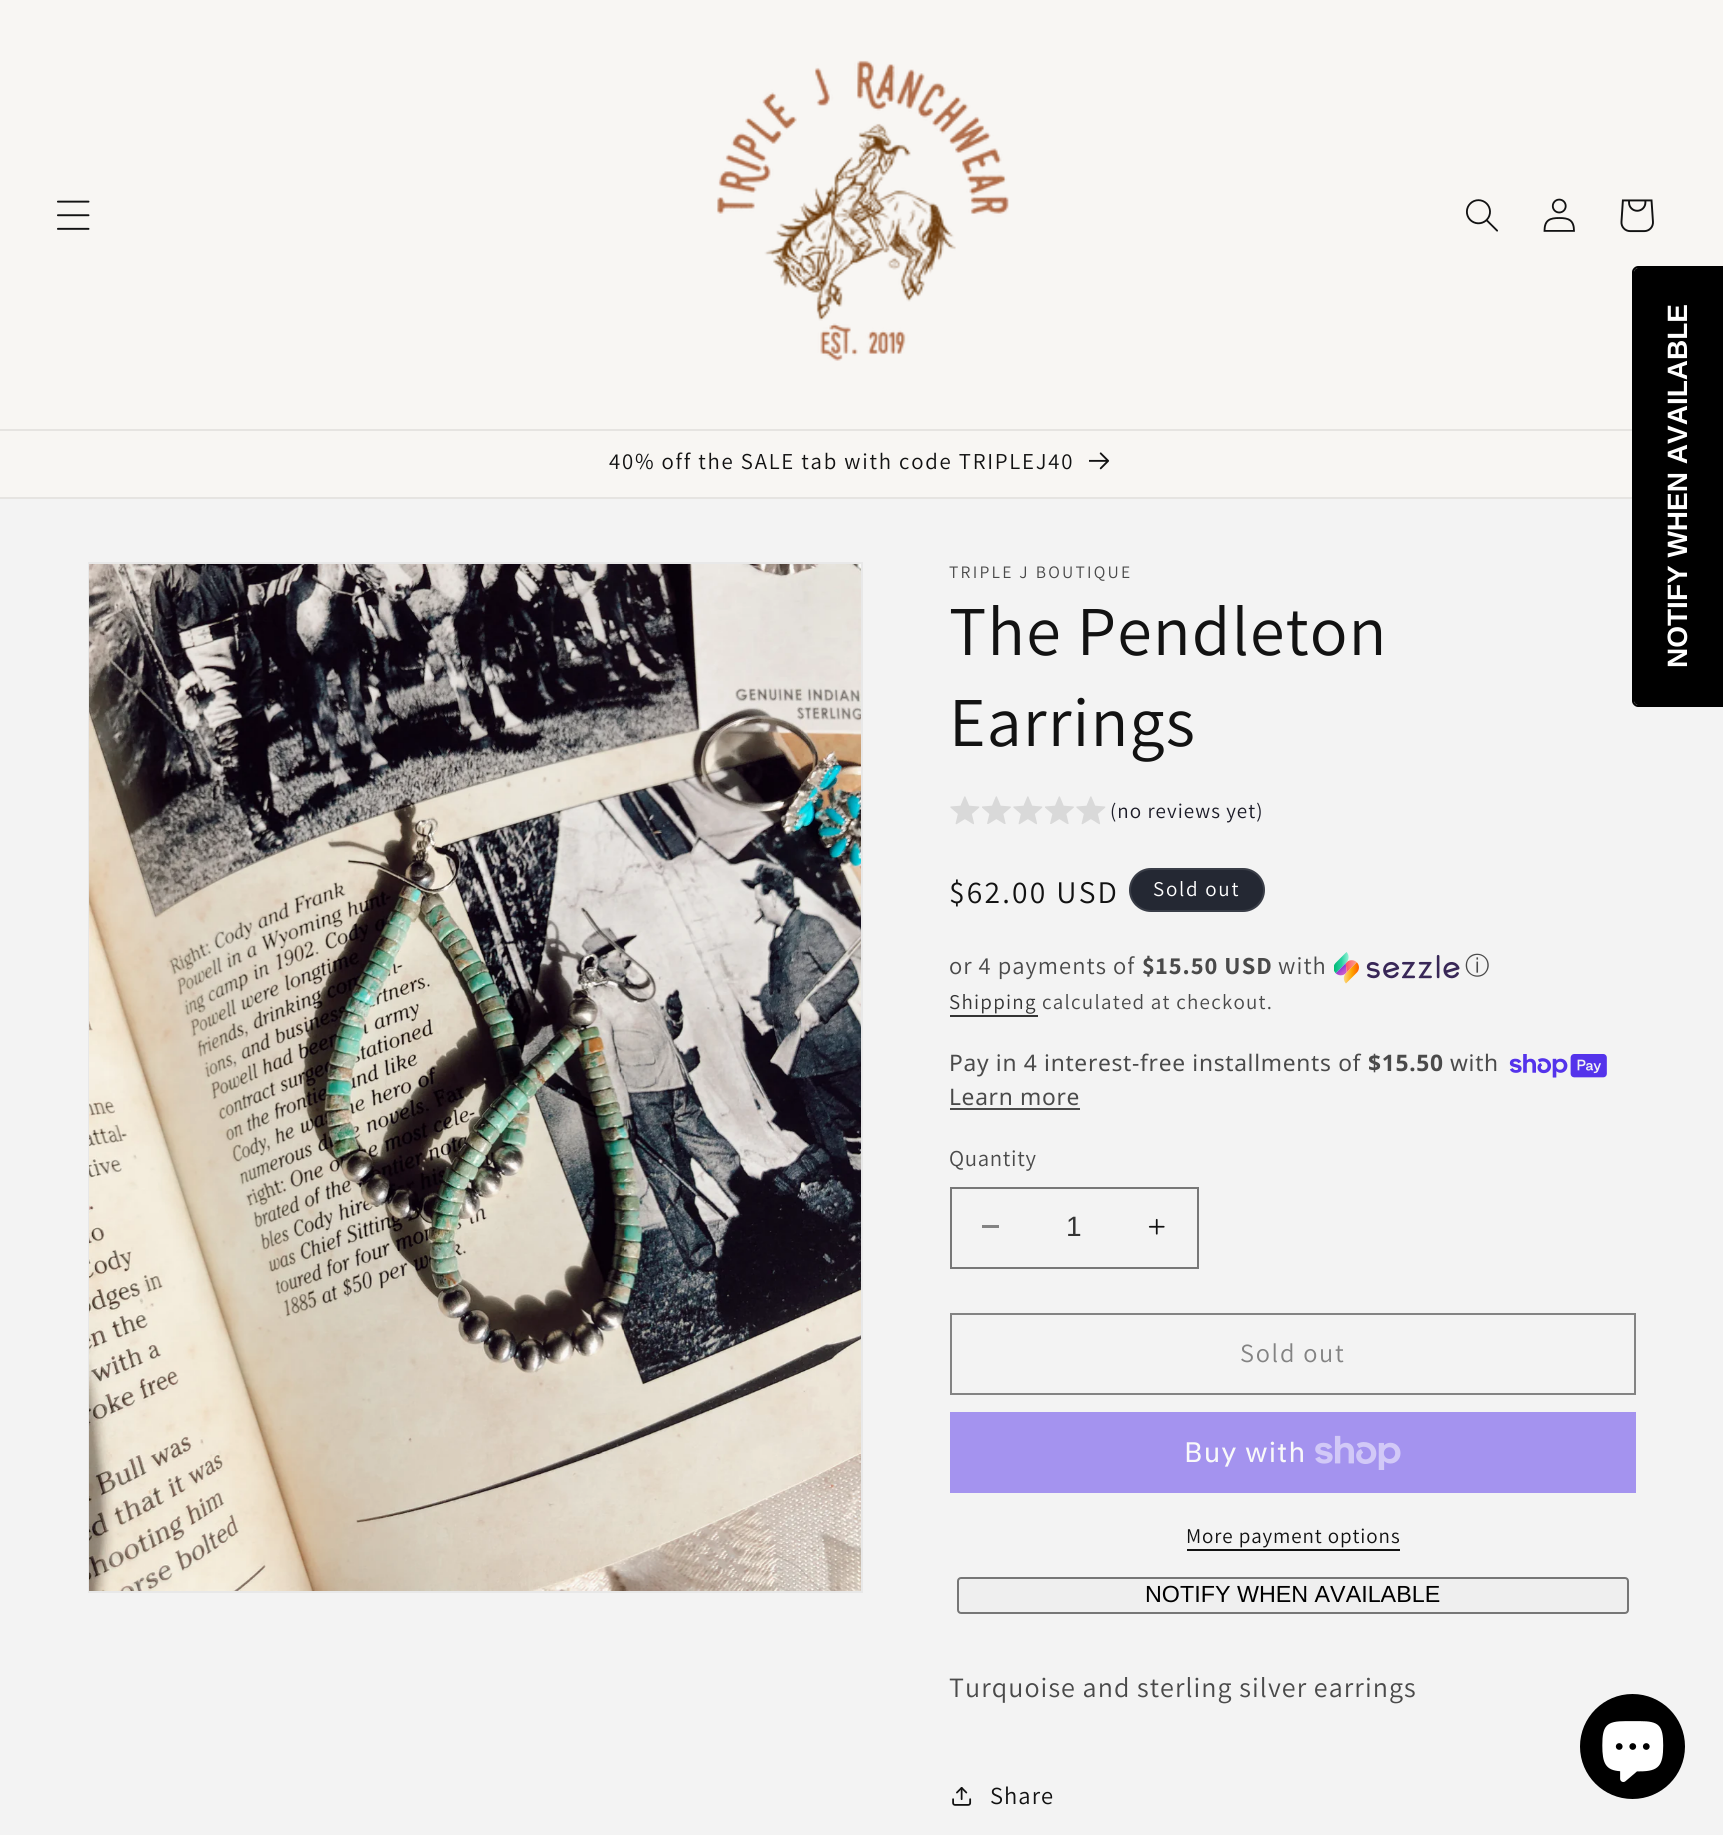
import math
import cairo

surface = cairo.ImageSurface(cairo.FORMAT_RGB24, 1723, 1835)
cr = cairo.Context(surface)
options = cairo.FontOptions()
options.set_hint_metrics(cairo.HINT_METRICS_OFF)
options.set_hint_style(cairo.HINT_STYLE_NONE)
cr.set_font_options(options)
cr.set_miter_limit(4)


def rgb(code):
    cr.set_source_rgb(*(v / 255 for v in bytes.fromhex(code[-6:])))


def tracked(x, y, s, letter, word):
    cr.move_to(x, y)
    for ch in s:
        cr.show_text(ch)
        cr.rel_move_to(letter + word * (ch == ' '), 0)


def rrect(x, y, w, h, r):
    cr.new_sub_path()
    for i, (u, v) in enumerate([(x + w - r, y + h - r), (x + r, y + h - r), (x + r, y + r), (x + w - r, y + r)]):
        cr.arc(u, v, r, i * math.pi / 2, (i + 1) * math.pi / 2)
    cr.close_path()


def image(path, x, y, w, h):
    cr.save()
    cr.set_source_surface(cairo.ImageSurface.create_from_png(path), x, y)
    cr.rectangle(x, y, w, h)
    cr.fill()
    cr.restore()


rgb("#f3f3f3")
cr.paint()
rgb("#f8f6f3")
cr.rectangle(0, 0, 1723, 429)
cr.fill()
rgb("#e6e4e1")
cr.rectangle(0, 429, 1632, 2)
cr.fill()
image("img/1.png", 57, 200, 33, 30)
image("img/2.png", 717, 60, 292, 301)
image("img/3.png", 1466, 199, 32, 33)
image("img/4.png", 1543, 198, 32, 34)
image("img/5.png", 1620, 199, 34, 34)
rgb("#f8f6f3")
cr.rectangle(0, 431, 1632, 66)
cr.fill()
rgb("#e6e4e1")
cr.rectangle(0, 497, 1632, 2)
cr.fill()
image("img/6.png", 1089, 452, 21, 18)
rgb("#000000")
cr.new_path()
cr.move_to(1634, 701)
cr.line_to(1634, 272)
cr.curve_to(1634, 270, 1636, 268, 1638, 268)
cr.line_to(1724, 268)
cr.line_to(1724, 705)
cr.line_to(1638, 705)
cr.curve_to(1636, 705, 1634, 703, 1634, 701)
cr.close_path()
cr.fill()
cr.set_fill_rule(cairo.FILL_RULE_EVEN_ODD)
cr.new_path()
cr.move_to(1632, 701)
cr.line_to(1632, 272)
cr.curve_to(1632, 269, 1635, 266, 1638, 266)
cr.line_to(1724, 266)
cr.line_to(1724, 707)
cr.line_to(1638, 707)
cr.curve_to(1635, 707, 1632, 704, 1632, 701)
cr.close_path()
cr.move_to(1634, 701)
cr.line_to(1634, 272)
cr.curve_to(1634, 270, 1636, 268, 1638, 268)
cr.line_to(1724, 268)
cr.line_to(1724, 705)
cr.line_to(1638, 705)
cr.curve_to(1636, 705, 1634, 703, 1634, 701)
cr.close_path()
cr.fill()
cr.rectangle(89, 563, 773, 1029)
rgb("#e8e8e8")
cr.stroke()
image("img/7.png", 89, 564, 772, 1027)
image("img/8.png", 950, 796, 30, 29)
image("img/9.png", 982, 796, 29, 28)
image("img/8.png", 1013, 796, 30, 29)
image("img/9.png", 1045, 796, 29, 28)
image("img/8.png", 1076, 796, 30, 29)
rgb("#242833")
rrect(1129, 868, 136, 44, 22)
cr.fill()
rrect(1130, 869, 134, 42, 21)
cr.set_source_rgba(1, 1, 1, 0.1)
cr.stroke()
image("img/10.png", 1334, 952, 126, 32)
rgb("#343434")
cr.rectangle(950, 1015, 88, 2)
cr.fill()
image("img/11.png", 1509, 1054, 98, 24)
rgb("#4a4a4a")
cr.rectangle(950, 1108, 130, 2)
cr.fill()
rgb("#838383")
cr.rectangle(982, 1225, 17, 3)
cr.fill()
image("img/12.png", 1148, 1218, 17, 17)
cr.rectangle(951, 1188, 247, 80)
rgb("#777777")
cr.stroke()
cr.rectangle(951, 1314, 684, 80)
rgb("#838383")
cr.stroke()
rgb("#a493ef")
cr.rectangle(950, 1412, 686, 81)
cr.fill()
image("img/13.png", 1315, 1435, 86, 35)
rgb("#121212")
cr.rectangle(1187, 1549, 213, 2)
cr.fill()
rgb("#efefef")
rrect(958, 1578, 670, 35, 3)
cr.fill_preserve()
rgb("#767676")
cr.stroke()
image("img/14.png", 952, 1787, 20, 19)
rgb("#000000")
cr.arc(1632.5, 1746.5, 52.5, 0, 2 * math.pi)
cr.fill()
image("img/15.png", 1602, 1721, 62, 61)
cr.select_font_face("Assistant")
cr.set_font_size(22.75)
rgb("#121212")
tracked(609, 469, "40% off the SALE tab with code TRIPLEJ40", 1.75, 0)
cr.select_font_face("Liberation Sans", cairo.FONT_SLANT_NORMAL, cairo.FONT_WEIGHT_BOLD)
cr.set_font_size(28)
rgb("#ffffff")
cr.save()
cr.translate(1687, 668)
cr.rotate(-90 * math.pi / 180)
cr.move_to(0, 0)
cr.show_text("NOTIFY WHEN AVAILABLE")
cr.restore()
cr.select_font_face("Assistant")
cr.set_font_size(17.5)
rgb("#4a4a4a")
tracked(949, 578, "TRIPLE J BOUTIQUE", 2.25, 0)
cr.set_font_size(70)
rgb("#121212")
tracked(949, 655, "The Pendleton", 1.05, 0)
tracked(949, 746, "Earrings", 1.05, 0)
cr.set_font_size(21)
rgb("#1c1c28")
tracked(1110, 818, "(no reviews yet)", 1.05, 0)
cr.set_font_size(31.5)
rgb("#121212")
tracked(949, 903, "$62.00 USD", 2.25, 0)
cr.set_font_size(21)
rgb("#ffffff")
tracked(1153, 896, "Sold out", 1.75, 0)
cr.set_font_size(24.5)
rgb("#4a4a4a")
tracked(949, 974, "or 4 payments of", 1.05, 0)
cr.select_font_face("Assistant", cairo.FONT_SLANT_NORMAL, cairo.FONT_WEIGHT_BOLD)
tracked(1142, 974, "$15.50 USD", 1.05, 0)
cr.select_font_face("Assistant")
tracked(1278, 974, "with", 1.05, 0)
cr.select_font_face("WenQuanYi Zen Hei Medium")
tracked(1465, 974, "ⓘ", 1.05, 0)
cr.select_font_face("Assistant")
cr.set_font_size(21)
rgb("#343434")
tracked(949, 1009, "Shipping", 1.25, 0)
rgb("#4a4a4a")
tracked(1042, 1009, "calculated at checkout.", 1.25, 0)
cr.select_font_face("Noto Sans")
cr.set_font_size(22.75)
tracked(949, 1071, "Pay in 4 interest-free installments of", 0.7, 0)
cr.select_font_face("Noto Sans", cairo.FONT_SLANT_NORMAL, cairo.FONT_WEIGHT_BOLD)
tracked(1368, 1071, "$15.50", 0.7, 0)
cr.select_font_face("Noto Sans")
tracked(1450, 1071, "with", 0.7, 0)
tracked(949, 1105, "Learn more", 0.7, 0)
cr.select_font_face("Assistant")
tracked(949, 1166, "Quantity", 0.7, 0)
cr.select_font_face("Liberation Sans")
cr.set_font_size(28)
rgb("#343434")
cr.move_to(1066, 1236)
cr.show_text("1")
cr.select_font_face("Assistant")
cr.set_font_size(26.25)
rgb("#838383")
tracked(1240, 1362, "Sold out", 1.75, 0)
cr.select_font_face("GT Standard")
cr.set_font_size(28)
rgb("#f9f9f9")
tracked(1184, 1462, "Buy with", 1.05, 0)
cr.select_font_face("Assistant")
cr.set_font_size(21)
rgb("#121212")
tracked(1186, 1543, "More payment options", 0.9, 0)
cr.select_font_face("Liberation Sans")
cr.set_font_size(23.3)
rgb("#000000")
cr.move_to(1145, 1602)
cr.show_text("NOTIFY WHEN AVAILABLE")
cr.select_font_face("Assistant")
cr.set_font_size(28)
rgb("#4a4a4a")
tracked(949, 1697, "Turquoise and sterling silver earrings", 1.05, 0)
cr.set_font_size(24.5)
rgb("#121212")
tracked(990, 1804, "Share", 1.05, 0)
surface.write_to_png("page.png")
